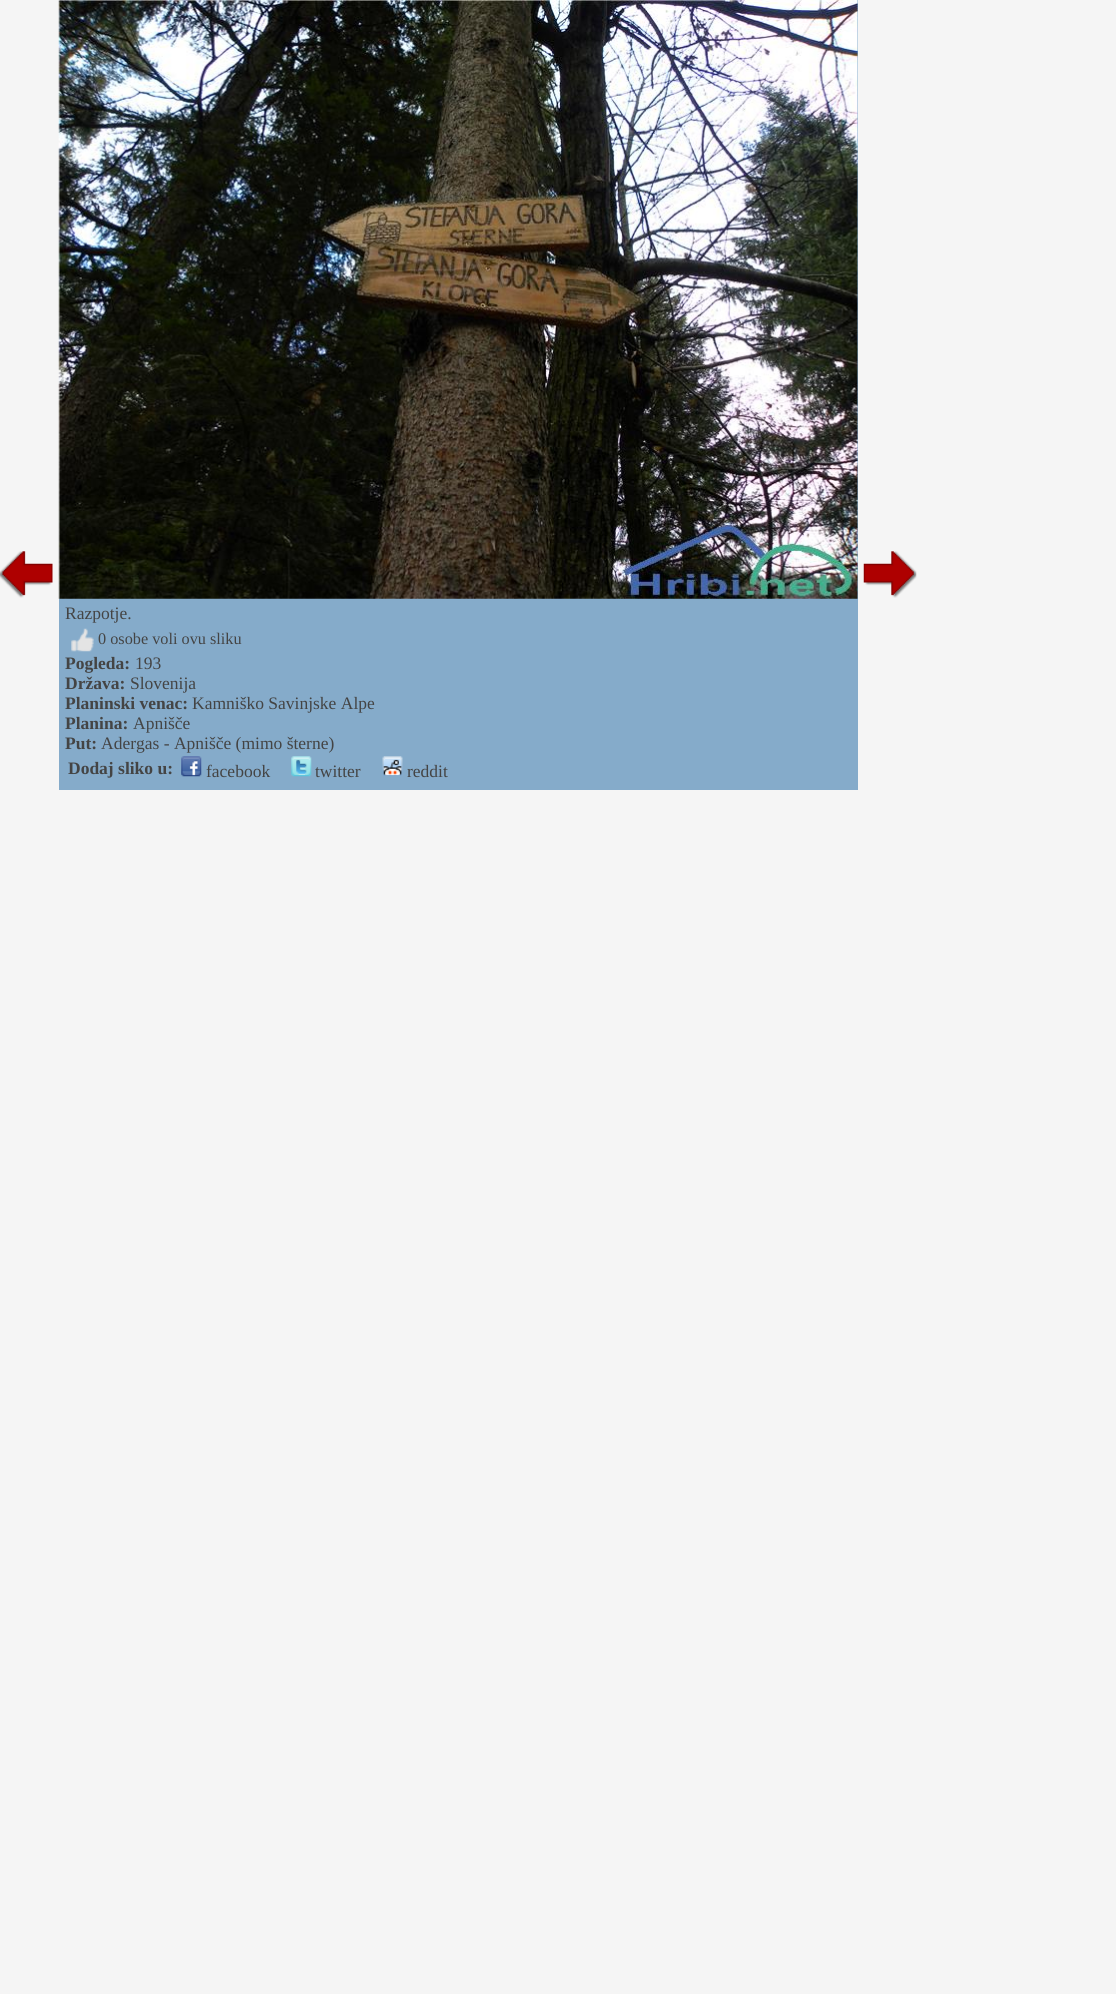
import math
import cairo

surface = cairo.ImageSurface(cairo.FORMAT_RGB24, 1116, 1994)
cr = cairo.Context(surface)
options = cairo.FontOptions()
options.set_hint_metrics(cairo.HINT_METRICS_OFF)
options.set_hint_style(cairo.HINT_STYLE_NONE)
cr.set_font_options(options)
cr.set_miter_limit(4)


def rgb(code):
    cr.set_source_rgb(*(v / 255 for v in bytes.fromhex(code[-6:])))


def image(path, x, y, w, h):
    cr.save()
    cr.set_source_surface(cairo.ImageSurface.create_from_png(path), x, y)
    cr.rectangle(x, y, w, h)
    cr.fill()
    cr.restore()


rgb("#f5f5f5")
cr.paint()
image("img/1.png", 0, 551, 53, 47)
image("img/2.png", 863, 551, 54, 47)
rgb("#85abca")
cr.rectangle(59, 0, 799, 790)
cr.fill()
image("img/3.png", 58, 0, 800, 599)
image("img/4.png", 71, 628, 23, 24)
image("img/5.png", 181, 756, 21, 21)
image("img/6.png", 291, 756, 21, 21)
image("img/7.png", 382, 756, 21, 20)
cr.select_font_face("Liberation Serif")
cr.set_font_size(17.5)
rgb("#444444")
cr.move_to(65, 619)
cr.show_text("Razpotje.")
cr.set_font_size(16.25)
cr.move_to(98, 644)
cr.show_text("0 osobe voli ovu sliku")
cr.select_font_face("Liberation Serif", cairo.FONT_SLANT_NORMAL, cairo.FONT_WEIGHT_BOLD)
cr.set_font_size(17.5)
cr.move_to(65, 669)
cr.show_text("Pogleda:")
cr.select_font_face("Liberation Serif")
cr.move_to(135, 669)
cr.show_text("193")
cr.select_font_face("Liberation Serif", cairo.FONT_SLANT_NORMAL, cairo.FONT_WEIGHT_BOLD)
cr.move_to(65, 689)
cr.show_text("Država:")
cr.select_font_face("Liberation Serif")
cr.move_to(130, 689)
cr.show_text("Slovenija")
cr.select_font_face("Liberation Serif", cairo.FONT_SLANT_NORMAL, cairo.FONT_WEIGHT_BOLD)
cr.move_to(65, 709)
cr.show_text("Planinski venac:")
cr.select_font_face("Liberation Serif")
cr.move_to(192, 709)
cr.show_text("Kamniško Savinjske Alpe")
cr.select_font_face("Liberation Serif", cairo.FONT_SLANT_NORMAL, cairo.FONT_WEIGHT_BOLD)
cr.move_to(65, 729)
cr.show_text("Planina:")
cr.select_font_face("Liberation Serif")
cr.move_to(133, 729)
cr.show_text("Apnišče")
cr.select_font_face("Liberation Serif", cairo.FONT_SLANT_NORMAL, cairo.FONT_WEIGHT_BOLD)
cr.move_to(65, 749)
cr.show_text("Put:")
cr.select_font_face("Liberation Serif")
cr.move_to(101, 749)
cr.show_text("Adergas - Apnišče (mimo šterne)")
cr.select_font_face("Liberation Serif", cairo.FONT_SLANT_NORMAL, cairo.FONT_WEIGHT_BOLD)
cr.move_to(68, 774)
cr.show_text("Dodaj sliko u:")
cr.select_font_face("Liberation Serif")
for x, y, s in [
    (206, 777, "facebook"),
    (315, 777, "twitter"),
    (407, 777, "reddit"),
]:
    cr.move_to(x, y)
    cr.show_text(s)
surface.write_to_png("page.png")
